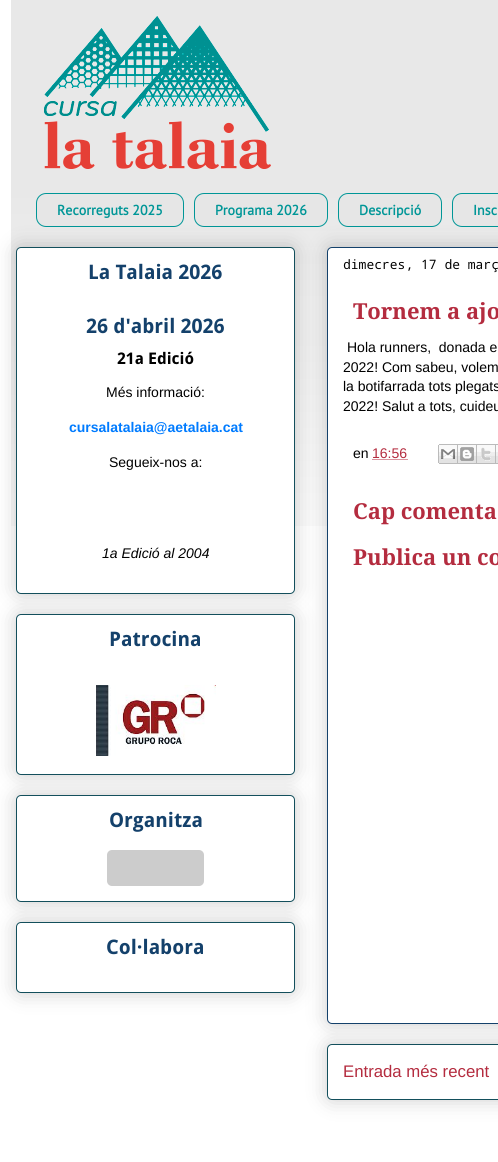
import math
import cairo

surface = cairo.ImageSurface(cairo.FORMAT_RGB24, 498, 1162)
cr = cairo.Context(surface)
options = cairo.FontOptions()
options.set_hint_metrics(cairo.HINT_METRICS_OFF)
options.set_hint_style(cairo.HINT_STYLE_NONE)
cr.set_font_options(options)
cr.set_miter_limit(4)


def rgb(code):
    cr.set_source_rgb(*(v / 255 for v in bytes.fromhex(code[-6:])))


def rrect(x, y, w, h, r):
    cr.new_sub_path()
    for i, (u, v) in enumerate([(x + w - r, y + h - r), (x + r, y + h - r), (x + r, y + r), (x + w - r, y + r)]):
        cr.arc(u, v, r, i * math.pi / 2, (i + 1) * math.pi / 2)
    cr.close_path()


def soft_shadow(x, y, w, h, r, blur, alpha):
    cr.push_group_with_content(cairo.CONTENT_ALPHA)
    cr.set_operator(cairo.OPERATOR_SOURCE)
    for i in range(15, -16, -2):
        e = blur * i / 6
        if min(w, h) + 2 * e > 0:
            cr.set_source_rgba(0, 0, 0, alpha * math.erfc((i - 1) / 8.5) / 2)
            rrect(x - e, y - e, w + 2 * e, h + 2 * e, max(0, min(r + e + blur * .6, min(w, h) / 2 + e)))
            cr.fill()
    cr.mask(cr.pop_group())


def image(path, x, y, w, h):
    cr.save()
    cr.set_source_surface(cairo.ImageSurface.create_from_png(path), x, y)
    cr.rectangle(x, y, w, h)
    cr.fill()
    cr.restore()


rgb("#ffffff")
cr.paint()
image("img/1.png", 11, 0, 487, 526)
rgb("#e6e6e6")
rrect(36.5, 193.5, 147, 33, 9.5)
cr.fill_preserve()
rgb("#009697")
cr.set_line_width(1)
cr.stroke()
rgb("#e6e6e6")
rrect(194.5, 193.5, 133, 33, 9.5)
cr.fill_preserve()
rgb("#009697")
cr.stroke()
rgb("#e6e6e6")
rrect(338.5, 193.5, 103, 33, 9.5)
cr.fill_preserve()
rgb("#009697")
cr.stroke()
rgb("#e6e6e6")
rrect(452.5, 193.5, 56, 33, 9.5)
cr.fill_preserve()
rgb("#009697")
cr.stroke()
rgb("#000000")
soft_shadow(16, 247, 279, 347, 5, 10, 0.2)
rgb("#ffffff")
rrect(16.5, 247.5, 278, 346, 4.5)
cr.fill_preserve()
rgb("#134f5c")
cr.stroke()
rgb("#000000")
soft_shadow(16, 614, 279, 161, 5, 10, 0.2)
rgb("#ffffff")
rrect(16.5, 614.5, 278, 160, 4.5)
cr.fill_preserve()
rgb("#134f5c")
cr.stroke()
image("img/2.png", 96, 685, 120, 71)
rgb("#000000")
soft_shadow(16, 795, 279, 107, 5, 10, 0.2)
rgb("#ffffff")
rrect(16.5, 795.5, 278, 106, 4.5)
cr.fill_preserve()
rgb("#134f5c")
cr.stroke()
rgb("#cccccc")
rrect(107, 850, 97, 36, 5)
cr.fill()
rgb("#000000")
soft_shadow(16, 922, 279, 71, 5, 10, 0.2)
rgb("#ffffff")
rrect(16.5, 922.5, 278, 70, 4.5)
cr.fill_preserve()
rgb("#134f5c")
cr.stroke()
rgb("#000000")
soft_shadow(327, 1044, 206, 56, 5, 10, 0.2)
rgb("#ffffff")
rrect(327.5, 1044.5, 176, 55, 4.5)
cr.fill_preserve()
rgb("#134f5c")
cr.stroke()
rgb("#000000")
soft_shadow(327, 247, 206, 777, 5, 10, 0.2)
rgb("#ffffff")
rrect(327.5, 247.5, 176, 776, 4.5)
cr.fill_preserve()
rgb("#14416b")
cr.stroke()
cr.new_path()
cr.move_to(372.5, 459.5)
cr.line_to(407.5, 459.5)
rgb("#b42c3f")
cr.set_dash([1, 1])
cr.stroke()
image("img/3.png", 438, 444, 20, 20)
image("img/4.png", 458, 444, 19, 20)
image("img/5.png", 477, 444, 19, 20)
image("img/6.png", 496, 444, 2, 20)
cr.select_font_face("PT Sans", cairo.FONT_SLANT_NORMAL, cairo.FONT_WEIGHT_BOLD)
cr.set_font_size(14)
rgb("#009697")
for x, y, s in [
    (57, 215, "Recorreguts 2025"),
    (215, 215, "Programa 2026"),
    (359, 215, "Descripció"),
    (473, 215, "Insc"),
]:
    cr.move_to(x, y)
    cr.show_text(s)
cr.select_font_face("Droid Sans", cairo.FONT_SLANT_NORMAL, cairo.FONT_WEIGHT_BOLD)
cr.set_font_size(20)
rgb("#14416b")
cr.move_to(88, 279)
cr.show_text("La Talaia 2026")
cr.move_to(86, 333)
cr.show_text("26 d'abril 2026")
cr.set_font_size(16)
rgb("#000000")
cr.move_to(117, 364)
cr.show_text("21a Edició")
cr.select_font_face("Liberation Sans")
cr.set_font_size(14)
cr.move_to(106, 397)
cr.show_text("Més informació:")
cr.select_font_face("Liberation Sans", cairo.FONT_SLANT_NORMAL, cairo.FONT_WEIGHT_BOLD)
rgb("#007bff")
cr.move_to(69, 432)
cr.show_text("cursalatalaia@aetalaia.cat")
cr.select_font_face("Liberation Sans")
rgb("#000000")
cr.move_to(109, 467)
cr.show_text("Segueix-nos a:")
cr.select_font_face("Liberation Sans", cairo.FONT_SLANT_ITALIC)
cr.move_to(102, 558)
cr.show_text("1a Edició al 2004")
cr.select_font_face("Droid Sans", cairo.FONT_SLANT_NORMAL, cairo.FONT_WEIGHT_BOLD)
cr.set_font_size(20)
rgb("#14416b")
for x, y, s in [
    (109, 646, "Patrocina"),
    (109, 827, "Organitza"),
    (106, 954, "Col·labora"),
]:
    cr.move_to(x, y)
    cr.show_text(s)
cr.select_font_face("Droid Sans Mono")
cr.set_font_size(13)
rgb("#000000")
cr.move_to(343, 269)
cr.show_text("dimecres, 17 de març")
cr.select_font_face("Droid Serif", cairo.FONT_SLANT_NORMAL, cairo.FONT_WEIGHT_BOLD)
cr.set_font_size(22)
rgb("#b42c3f")
cr.move_to(353, 319)
cr.show_text("Tornem a ajo")
cr.select_font_face("Arimo")
cr.set_font_size(14)
rgb("#000000")
for x, y, s in [
    (347, 352, "Hola runners,  donada e"),
    (343, 372, "2022! Com sabeu, volem"),
    (343, 391, "la botifarrada tots plegats"),
    (343, 411, "2022! Salut a tots, cuideu"),
    (353, 458, "en"),
]:
    cr.move_to(x, y)
    cr.show_text(s)
rgb("#b42c3f")
cr.move_to(372, 458)
cr.show_text("16:56")
cr.select_font_face("Droid Serif", cairo.FONT_SLANT_NORMAL, cairo.FONT_WEIGHT_BOLD)
cr.set_font_size(22)
cr.move_to(353, 519)
cr.show_text("Cap comenta")
cr.move_to(353, 565)
cr.show_text("Publica un co")
cr.select_font_face("Arimo")
cr.set_font_size(16.75)
cr.move_to(343, 1077)
cr.show_text("Entrada més recent")
surface.write_to_png("page.png")
